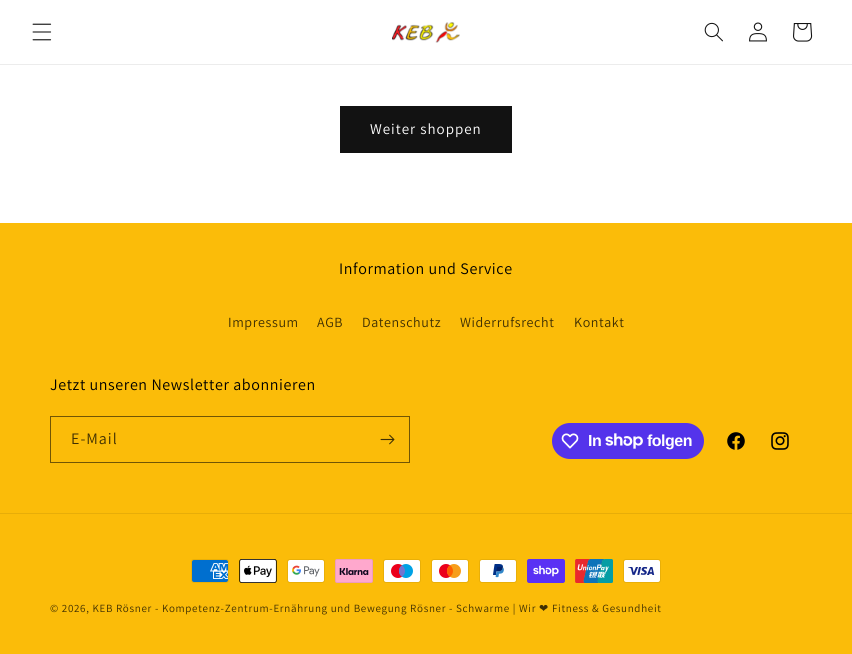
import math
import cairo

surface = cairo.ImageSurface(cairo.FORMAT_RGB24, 852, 654)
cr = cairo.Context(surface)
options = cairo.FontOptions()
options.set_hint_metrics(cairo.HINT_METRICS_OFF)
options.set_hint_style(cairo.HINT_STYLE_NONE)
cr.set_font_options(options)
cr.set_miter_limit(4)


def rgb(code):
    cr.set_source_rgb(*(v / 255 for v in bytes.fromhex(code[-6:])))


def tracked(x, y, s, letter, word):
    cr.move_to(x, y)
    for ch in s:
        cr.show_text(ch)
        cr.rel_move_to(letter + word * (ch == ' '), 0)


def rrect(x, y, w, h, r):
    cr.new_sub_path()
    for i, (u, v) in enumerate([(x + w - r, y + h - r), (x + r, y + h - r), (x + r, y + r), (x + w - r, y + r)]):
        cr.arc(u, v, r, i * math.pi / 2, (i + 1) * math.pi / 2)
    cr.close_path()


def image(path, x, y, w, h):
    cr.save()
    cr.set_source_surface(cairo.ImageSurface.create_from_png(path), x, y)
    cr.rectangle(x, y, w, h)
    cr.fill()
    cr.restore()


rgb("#ffffff")
cr.paint()
rgb("#ececec")
cr.rectangle(0, 64, 852, 1)
cr.fill()
image("img/1.png", 32, 23, 20, 18)
image("img/2.png", 392, 22, 68, 21)
image("img/3.png", 704, 22, 19, 20)
image("img/4.png", 749, 22, 18, 20)
image("img/5.png", 793, 23, 20, 19)
rgb("#121212")
cr.rectangle(340, 106, 172, 47)
cr.fill()
rgb("#fbbc09")
cr.rectangle(0, 223, 852, 431)
cr.fill()
cr.rectangle(50.5, 416.5, 359, 46)
rgb("#715504")
cr.set_line_width(1)
cr.stroke()
image("img/6.png", 380, 434, 15, 11)
rgb("#5433eb")
rrect(552, 423, 152, 36, 18)
cr.fill()
image("img/7.png", 561, 433, 18, 16)
image("img/8.png", 605, 433, 38, 16)
image("img/9.png", 727, 432, 18, 18)
image("img/10.png", 771, 432, 18, 18)
rgb("#e7ad08")
cr.rectangle(0, 513, 852, 1)
cr.fill()
image("img/11.png", 191, 559, 38, 24)
image("img/12.png", 239, 559, 38, 24)
image("img/13.png", 287, 559, 38, 24)
image("img/14.png", 335, 559, 38, 24)
image("img/15.png", 383, 559, 38, 24)
image("img/16.png", 431, 559, 38, 24)
image("img/17.png", 479, 559, 38, 24)
image("img/18.png", 527, 559, 38, 24)
image("img/19.png", 575, 559, 38, 24)
image("img/20.png", 623, 559, 38, 24)
cr.select_font_face("Assistant")
cr.set_font_size(15)
rgb("#ffffff")
tracked(370, 134, "Weiter shoppen", 1, 0)
cr.set_font_size(16)
rgb("#000000")
tracked(339, 274, "Information und Service", 0.6, 0)
cr.set_font_size(14)
rgb("#3f2f02")
for x, y, s in [
    (228, 327, "Impressum"),
    (317, 327, "AGB"),
    (362, 327, "Datenschutz"),
    (460, 327, "Widerrufsrecht"),
    (574, 327, "Kontakt"),
]:
    tracked(x, y, s, 0.6, 0)
cr.set_font_size(16)
rgb("#000000")
tracked(50, 390, "Jetzt unseren Newsletter abonnieren", 0.6, 0)
rgb("#3f2f02")
tracked(71, 444, "E-Mail", 1, 0)
cr.select_font_face("Liberation Sans", cairo.FONT_SLANT_NORMAL, cairo.FONT_WEIGHT_BOLD)
rgb("#ffffff")
tracked(588, 446, "In", -0.5, 0)
tracked(647, 446, "folgen", -0.5, 0)
cr.select_font_face("Assistant")
cr.set_font_size(11)
rgb("#3f2f02")
tracked(50, 612, "© 2026, KEB Rösner - Kompetenz-Zentrum-Ernährung und Bewegung Rösner - Schwarme | Wir", 0.7, 0)
cr.select_font_face("DejaVu Sans")
tracked(539, 612, "❤", 0.7, 0)
cr.select_font_face("Assistant")
tracked(552, 612, "Fitness & Gesundheit", 0.7, 0)
surface.write_to_png("page.png")
